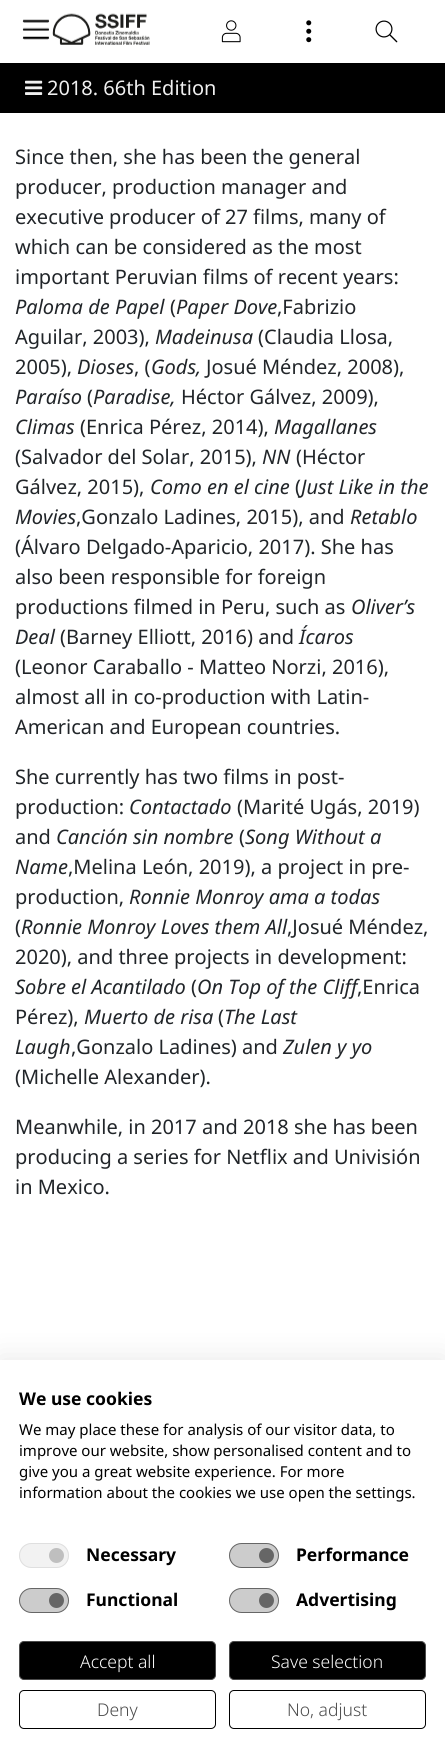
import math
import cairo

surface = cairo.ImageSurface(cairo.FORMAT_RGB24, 445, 1762)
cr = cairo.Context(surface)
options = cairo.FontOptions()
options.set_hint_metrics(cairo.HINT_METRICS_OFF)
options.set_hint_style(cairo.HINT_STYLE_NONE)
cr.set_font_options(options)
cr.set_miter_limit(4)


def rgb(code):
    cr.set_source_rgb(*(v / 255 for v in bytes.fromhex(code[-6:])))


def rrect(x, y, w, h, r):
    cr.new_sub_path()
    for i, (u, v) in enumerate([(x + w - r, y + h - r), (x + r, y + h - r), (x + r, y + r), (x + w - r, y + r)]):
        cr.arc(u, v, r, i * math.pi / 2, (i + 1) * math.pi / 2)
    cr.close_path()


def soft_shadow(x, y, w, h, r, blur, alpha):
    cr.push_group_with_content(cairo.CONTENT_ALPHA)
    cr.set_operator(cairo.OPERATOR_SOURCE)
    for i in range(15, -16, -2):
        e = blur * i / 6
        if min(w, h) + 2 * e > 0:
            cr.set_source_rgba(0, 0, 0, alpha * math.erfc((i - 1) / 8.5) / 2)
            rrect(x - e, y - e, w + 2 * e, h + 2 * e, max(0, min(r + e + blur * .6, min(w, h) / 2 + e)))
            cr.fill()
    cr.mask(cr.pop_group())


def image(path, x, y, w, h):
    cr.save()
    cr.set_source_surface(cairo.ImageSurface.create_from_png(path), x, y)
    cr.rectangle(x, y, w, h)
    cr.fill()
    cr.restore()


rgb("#ffffff")
cr.paint()
image("img/1.png", 22, 13, 128, 32)
image("img/2.png", 221, 20, 20, 23)
image("img/3.png", 306, 20, 6, 23)
image("img/4.png", 375, 20, 23, 23)
rgb("#000000")
cr.rectangle(0, 63, 445, 50)
cr.fill()
image("img/5.png", 25, 80, 18, 15)
rgb("#000000")
soft_shadow(0, 1360, 445, 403, 0, 15, 0.1)
rgb("#ffffff")
cr.rectangle(0, 1360, 445, 402)
cr.fill()
rgb("#f2f2f2")
rrect(19, 1543, 50, 25, 12.5)
cr.fill()
rgb("#bfbfbf")
cr.arc(56.5, 1555.5, 7.5, 0, 2 * math.pi)
cr.fill()
rrect(19.5, 1543.5, 49, 24, 12)
rgb("#dfdfdf")
cr.set_line_width(1)
cr.stroke()
rgb("#cccccc")
rrect(229, 1543, 50, 25, 12.5)
cr.fill()
rgb("#666666")
cr.arc(266.5, 1555.5, 7.5, 0, 2 * math.pi)
cr.fill()
rrect(229.5, 1543.5, 49, 24, 12)
cr.set_source_rgba(0, 0, 0, 0.5)
cr.stroke()
rgb("#cccccc")
rrect(19, 1588, 50, 25, 12.5)
cr.fill()
rgb("#666666")
cr.arc(56.5, 1600.5, 7.5, 0, 2 * math.pi)
cr.fill()
rrect(19.5, 1588.5, 49, 24, 12)
cr.set_source_rgba(0, 0, 0, 0.5)
cr.stroke()
rgb("#cccccc")
rrect(229, 1588, 50, 25, 12.5)
cr.fill()
rgb("#666666")
cr.arc(266.5, 1600.5, 7.5, 0, 2 * math.pi)
cr.fill()
rrect(229.5, 1588.5, 49, 24, 12)
cr.set_source_rgba(0, 0, 0, 0.5)
cr.stroke()
rgb("#000000")
rrect(19.5, 1641.5, 196, 38, 4.5)
cr.fill_preserve()
rgb("#4a4a4a")
cr.stroke()
rgb("#000000")
rrect(229.5, 1641.5, 196, 38, 4.5)
cr.fill_preserve()
rgb("#4a4a4a")
cr.stroke()
rrect(19.5, 1690.5, 196, 38, 4.5)
rgb("#000000")
cr.stroke()
rrect(229.5, 1690.5, 196, 38, 4.5)
cr.stroke()
cr.select_font_face("Noto Sans")
cr.set_font_size(20)
rgb("#f0f0f0")
cr.move_to(47, 95)
cr.show_text("2018. 66th Edition")
rgb("#212529")
for x, y, s in [
    (15, 164, "Since then, she has been the general"),
    (15, 194, "producer, production manager and"),
    (15, 224, "executive producer of 27 films, many of"),
    (15, 254, "which can be considered as the most"),
    (15, 284, "important Peruvian films of recent years:"),
]:
    cr.move_to(x, y)
    cr.show_text(s)
cr.select_font_face("Noto Sans", cairo.FONT_SLANT_ITALIC)
cr.move_to(15, 314)
cr.show_text("Paloma de Papel")
cr.select_font_face("Noto Sans")
cr.move_to(170, 314)
cr.show_text("(")
cr.select_font_face("Noto Sans", cairo.FONT_SLANT_ITALIC)
cr.move_to(176, 314)
cr.show_text("Paper Dove")
cr.select_font_face("Noto Sans")
cr.move_to(277, 314)
cr.show_text(",Fabrizio")
cr.move_to(15, 344)
cr.show_text("Aguilar, 2003),")
cr.select_font_face("Noto Sans", cairo.FONT_SLANT_ITALIC)
cr.move_to(155, 344)
cr.show_text("Madeinusa")
cr.select_font_face("Noto Sans")
cr.move_to(258, 344)
cr.show_text("(Claudia Llosa,")
cr.move_to(15, 374)
cr.show_text("2005),")
cr.select_font_face("Noto Sans", cairo.FONT_SLANT_ITALIC)
cr.move_to(77, 374)
cr.show_text("Dioses")
cr.select_font_face("Noto Sans")
cr.move_to(134, 374)
cr.show_text(", (")
cr.select_font_face("Noto Sans", cairo.FONT_SLANT_ITALIC)
cr.move_to(151, 374)
cr.show_text("Gods,")
cr.select_font_face("Noto Sans")
cr.move_to(206, 374)
cr.show_text("Josué Méndez, 2008),")
cr.select_font_face("Noto Sans", cairo.FONT_SLANT_ITALIC)
cr.move_to(15, 404)
cr.show_text("Paraíso")
cr.select_font_face("Noto Sans")
cr.move_to(87, 404)
cr.show_text("(")
cr.select_font_face("Noto Sans", cairo.FONT_SLANT_ITALIC)
cr.move_to(93, 404)
cr.show_text("Paradise,")
cr.select_font_face("Noto Sans")
cr.move_to(181, 404)
cr.show_text("Héctor Gálvez, 2009),")
cr.select_font_face("Noto Sans", cairo.FONT_SLANT_ITALIC)
cr.move_to(15, 434)
cr.show_text("Climas")
cr.select_font_face("Noto Sans")
cr.move_to(80, 434)
cr.show_text("(Enrica Pérez, 2014),")
cr.select_font_face("Noto Sans", cairo.FONT_SLANT_ITALIC)
cr.move_to(274, 434)
cr.show_text("Magallanes")
cr.select_font_face("Noto Sans")
cr.move_to(15, 464)
cr.show_text("(Salvador del Solar, 2015),")
cr.select_font_face("Noto Sans", cairo.FONT_SLANT_ITALIC)
cr.move_to(262, 464)
cr.show_text("NN")
cr.select_font_face("Noto Sans")
cr.move_to(296, 464)
cr.show_text("(Héctor")
cr.move_to(15, 494)
cr.show_text("Gálvez, 2015),")
cr.select_font_face("Noto Sans", cairo.FONT_SLANT_ITALIC)
cr.move_to(150, 494)
cr.show_text("Como en el cine")
cr.select_font_face("Noto Sans")
cr.move_to(295, 494)
cr.show_text("(")
cr.select_font_face("Noto Sans", cairo.FONT_SLANT_ITALIC)
cr.move_to(301, 494)
cr.show_text("Just Like in the")
cr.move_to(15, 524)
cr.show_text("Movies")
cr.select_font_face("Noto Sans")
cr.move_to(76, 524)
cr.show_text(",Gonzalo Ladines, 2015), and")
cr.select_font_face("Noto Sans", cairo.FONT_SLANT_ITALIC)
cr.move_to(350, 524)
cr.show_text("Retablo")
cr.select_font_face("Noto Sans")
for x, y, s in [
    (15, 554, "(Álvaro Delgado-Aparicio, 2017). She has"),
    (15, 584, "also been responsible for foreign"),
    (15, 614, "productions filmed in Peru, such as"),
]:
    cr.move_to(x, y)
    cr.show_text(s)
cr.select_font_face("Noto Sans", cairo.FONT_SLANT_ITALIC)
cr.move_to(351, 614)
cr.show_text("Oliver’s")
cr.move_to(15, 644)
cr.show_text("Deal")
cr.select_font_face("Noto Sans")
cr.move_to(60, 644)
cr.show_text("(Barney Elliott, 2016) and")
cr.select_font_face("Noto Sans", cairo.FONT_SLANT_ITALIC)
cr.move_to(299, 644)
cr.show_text("Ícaros")
cr.select_font_face("Noto Sans")
for x, y, s in [
    (15, 674, "(Leonor Caraballo - Matteo Norzi, 2016),"),
    (15, 704, "almost all in co-production with Latin-"),
    (15, 734, "American and European countries."),
    (15, 784, "She currently has two films in post-"),
    (15, 814, "production:"),
]:
    cr.move_to(x, y)
    cr.show_text(s)
cr.select_font_face("Noto Sans", cairo.FONT_SLANT_ITALIC)
cr.move_to(129, 814)
cr.show_text("Contactado")
cr.select_font_face("Noto Sans")
cr.move_to(237, 814)
cr.show_text("(Marité Ugás, 2019)")
cr.move_to(15, 844)
cr.show_text("and")
cr.select_font_face("Noto Sans", cairo.FONT_SLANT_ITALIC)
cr.move_to(56, 844)
cr.show_text("Canción sin nombre")
cr.select_font_face("Noto Sans")
cr.move_to(239, 844)
cr.show_text("(")
cr.select_font_face("Noto Sans", cairo.FONT_SLANT_ITALIC)
cr.move_to(245, 844)
cr.show_text("Song Without a")
cr.move_to(15, 874)
cr.show_text("Name")
cr.select_font_face("Noto Sans")
cr.move_to(68, 874)
cr.show_text(",Melina León, 2019), a project in pre-")
cr.move_to(15, 904)
cr.show_text("production,")
cr.select_font_face("Noto Sans", cairo.FONT_SLANT_ITALIC)
cr.move_to(129, 904)
cr.show_text("Ronnie Monroy ama a todas")
cr.select_font_face("Noto Sans")
cr.move_to(15, 934)
cr.show_text("(")
cr.select_font_face("Noto Sans", cairo.FONT_SLANT_ITALIC)
cr.move_to(21, 934)
cr.show_text("Ronnie Monroy Loves them All")
cr.select_font_face("Noto Sans")
cr.move_to(287, 934)
cr.show_text(",Josué Méndez,")
cr.move_to(15, 964)
cr.show_text("2020), and three projects in development:")
cr.select_font_face("Noto Sans", cairo.FONT_SLANT_ITALIC)
cr.move_to(15, 994)
cr.show_text("Sobre el Acantilado")
cr.select_font_face("Noto Sans")
cr.move_to(191, 994)
cr.show_text("(")
cr.select_font_face("Noto Sans", cairo.FONT_SLANT_ITALIC)
cr.move_to(197, 994)
cr.show_text("On Top of the Cliff")
cr.select_font_face("Noto Sans")
cr.move_to(357, 994)
cr.show_text(",Enrica")
cr.move_to(15, 1024)
cr.show_text("Pérez),")
cr.select_font_face("Noto Sans", cairo.FONT_SLANT_ITALIC)
cr.move_to(84, 1024)
cr.show_text("Muerto de risa")
cr.select_font_face("Noto Sans")
cr.move_to(218, 1024)
cr.show_text("(")
cr.select_font_face("Noto Sans", cairo.FONT_SLANT_ITALIC)
cr.move_to(224, 1024)
cr.show_text("The Last")
cr.move_to(15, 1054)
cr.show_text("Laugh")
cr.select_font_face("Noto Sans")
cr.move_to(71, 1054)
cr.show_text(",Gonzalo Ladines) and")
cr.select_font_face("Noto Sans", cairo.FONT_SLANT_ITALIC)
cr.move_to(283, 1054)
cr.show_text("Zulen y yo")
cr.select_font_face("Noto Sans")
for x, y, s in [
    (15, 1084, "(Michelle Alexander)."),
    (15, 1134, "Meanwhile, in 2017 and 2018 she has been"),
    (15, 1164, "producing a series for Netflix and Univisión"),
    (15, 1194, "in Mexico."),
]:
    cr.move_to(x, y)
    cr.show_text(s)
cr.select_font_face("Noto Sans", cairo.FONT_SLANT_NORMAL, cairo.FONT_WEIGHT_BOLD)
cr.set_font_size(17.5)
rgb("#000000")
cr.move_to(19, 1405)
cr.show_text("We use cookies")
cr.select_font_face("Noto Sans")
cr.set_font_size(15)
for x, y, s in [
    (19, 1435, "We may place these for analysis of our visitor data, to"),
    (19, 1456, "improve our website, show personalised content and to"),
    (19, 1477, "give you a great website experience. For more"),
    (19, 1498, "information about the cookies we use open the settings."),
]:
    cr.move_to(x, y)
    cr.show_text(s)
cr.select_font_face("Noto Sans", cairo.FONT_SLANT_NORMAL, cairo.FONT_WEIGHT_BOLD)
cr.set_font_size(17.5)
for x, y, s in [
    (86, 1561, "Necessary"),
    (296, 1561, "Performance"),
    (86, 1606, "Functional"),
    (296, 1606, "Advertising"),
]:
    cr.move_to(x, y)
    cr.show_text(s)
cr.select_font_face("Noto Sans Light")
rgb("#ffffff")
cr.move_to(80, 1668)
cr.show_text("Accept all")
cr.move_to(271, 1668)
cr.show_text("Save selection")
rgb("#4a4a4a")
cr.move_to(97, 1716)
cr.show_text("Deny")
cr.move_to(287, 1716)
cr.show_text("No, adjust")
surface.write_to_png("page.png")
